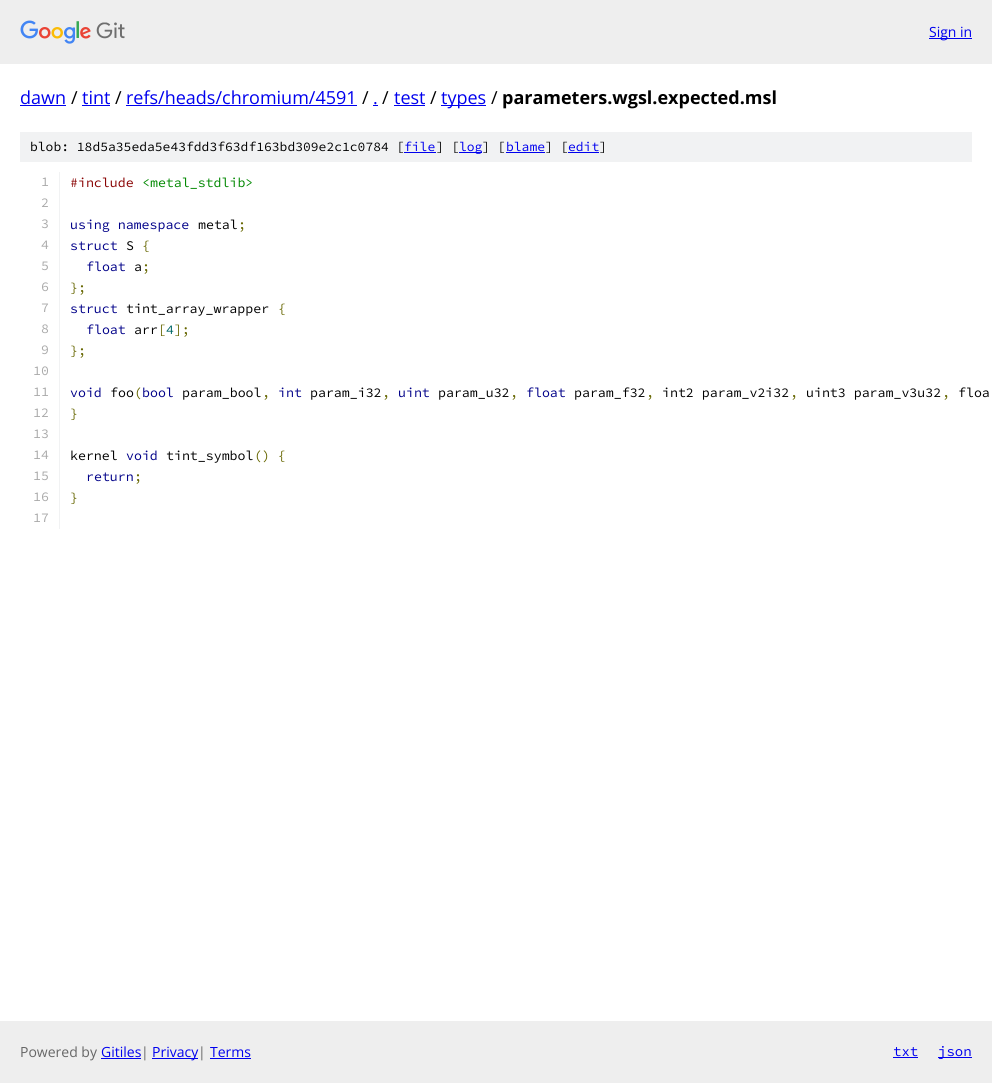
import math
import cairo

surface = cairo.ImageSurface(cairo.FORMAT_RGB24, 992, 1083)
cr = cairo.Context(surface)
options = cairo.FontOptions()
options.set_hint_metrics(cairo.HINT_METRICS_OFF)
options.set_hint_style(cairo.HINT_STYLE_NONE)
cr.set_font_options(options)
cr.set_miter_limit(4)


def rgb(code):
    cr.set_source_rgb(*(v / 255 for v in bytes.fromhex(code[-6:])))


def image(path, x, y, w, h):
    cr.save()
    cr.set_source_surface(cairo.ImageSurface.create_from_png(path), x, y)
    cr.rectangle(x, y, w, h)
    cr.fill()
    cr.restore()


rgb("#ffffff")
cr.paint()
rgb("#eeeeee")
cr.rectangle(0, 0, 992, 64)
cr.fill()
image("img/1.png", 20, 20, 105, 24)
for x, y, w, h, color in [
    (929, 38, 43, 1, "#0000ee"),
    (20, 105, 46, 1, "#0000ee"),
    (82, 105, 28, 1, "#0000ee"),
    (126, 105, 231, 1, "#0000ee"),
    (373, 105, 5, 1, "#0000ee"),
    (394, 105, 31, 1, "#0000ee"),
    (441, 105, 45, 1, "#0000ee"),
    (20, 132, 952, 30, "#f1f2f3"),
    (404, 152, 32, 1, "#0000ee"),
    (459, 152, 23, 1, "#0000ee"),
    (506, 152, 39, 1, "#0000ee"),
    (568, 152, 31, 1, "#0000ee"),
    (59, 172, 1, 357, "#f1f2f3"),
    (0, 1021, 992, 62, "#eeeeee"),
    (101, 1058, 40, 1, "#0000ee"),
    (152, 1058, 46, 1, "#0000ee"),
    (210, 1058, 41, 1, "#0000ee"),
    (893, 1057, 25, 1, "#0000ee"),
    (938, 1057, 34, 1, "#0000ee"),
]:
    rgb(color)
    cr.rectangle(x, y, w, h)
    cr.fill()
cr.select_font_face("Open Sans")
cr.set_font_size(14)
cr.move_to(929, 37)
cr.show_text("Sign in")
cr.set_font_size(18)
cr.move_to(20, 104)
cr.show_text("dawn")
rgb("#000000")
cr.move_to(71, 104)
cr.show_text("/")
rgb("#0000ee")
cr.move_to(82, 104)
cr.show_text("tint")
rgb("#000000")
cr.move_to(115, 104)
cr.show_text("/")
rgb("#0000ee")
cr.move_to(126, 104)
cr.show_text("refs/heads/chromium/4591")
rgb("#000000")
cr.move_to(362, 104)
cr.show_text("/")
rgb("#0000ee")
cr.move_to(373, 104)
cr.show_text(".")
rgb("#000000")
cr.move_to(382, 104)
cr.show_text("/")
rgb("#0000ee")
cr.move_to(394, 104)
cr.show_text("test")
rgb("#000000")
cr.move_to(430, 104)
cr.show_text("/")
rgb("#0000ee")
cr.move_to(441, 104)
cr.show_text("types")
rgb("#000000")
cr.move_to(491, 104)
cr.show_text("/")
cr.select_font_face("Open Sans", cairo.FONT_SLANT_NORMAL, cairo.FONT_WEIGHT_BOLD)
cr.move_to(502, 104)
cr.show_text("parameters.wgsl.expected.msl")
cr.select_font_face("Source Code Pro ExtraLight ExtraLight")
cr.set_font_size(13)
cr.move_to(30, 151)
cr.show_text("blob: 18d5a35eda5e43fdd3f63df163bd309e2c1c0784 [")
rgb("#0000ee")
cr.move_to(404, 151)
cr.show_text("file")
rgb("#000000")
cr.move_to(436, 151)
cr.show_text("] [")
rgb("#0000ee")
cr.move_to(459, 151)
cr.show_text("log")
rgb("#000000")
cr.move_to(482, 151)
cr.show_text("] [")
rgb("#0000ee")
cr.move_to(506, 151)
cr.show_text("blame")
rgb("#000000")
cr.move_to(545, 151)
cr.show_text("] [")
rgb("#0000ee")
cr.move_to(568, 151)
cr.show_text("edit")
rgb("#000000")
cr.move_to(599, 151)
cr.show_text("]")
cr.set_font_size(13.25)
rgb("#aaaaaa")
cr.move_to(41, 186)
cr.show_text("1")
rgb("#880000")
cr.move_to(70, 187)
cr.show_text("#include")
rgb("#008800")
cr.move_to(142, 187)
cr.show_text("<metal_stdlib>")
rgb("#aaaaaa")
cr.move_to(41, 207)
cr.show_text("2")
cr.move_to(41, 228)
cr.show_text("3")
rgb("#000088")
cr.move_to(70, 229)
cr.show_text("using namespace")
rgb("#000000")
cr.move_to(198, 229)
cr.show_text("metal")
rgb("#666600")
cr.move_to(238, 229)
cr.show_text(";")
rgb("#aaaaaa")
cr.move_to(41, 249)
cr.show_text("4")
rgb("#000088")
cr.move_to(70, 250)
cr.show_text("struct")
rgb("#000000")
cr.move_to(126, 250)
cr.show_text("S")
rgb("#666600")
cr.move_to(142, 250)
cr.show_text("{")
rgb("#aaaaaa")
cr.move_to(41, 270)
cr.show_text("5")
rgb("#000088")
cr.move_to(86, 271)
cr.show_text("float")
rgb("#000000")
cr.move_to(134, 271)
cr.show_text("a")
rgb("#666600")
cr.move_to(142, 271)
cr.show_text(";")
rgb("#aaaaaa")
cr.move_to(41, 291)
cr.show_text("6")
rgb("#666600")
cr.move_to(70, 292)
cr.show_text("};")
rgb("#aaaaaa")
cr.move_to(41, 312)
cr.show_text("7")
rgb("#000088")
cr.move_to(70, 313)
cr.show_text("struct")
rgb("#000000")
cr.move_to(126, 313)
cr.show_text("tint_array_wrapper")
rgb("#666600")
cr.move_to(278, 313)
cr.show_text("{")
rgb("#aaaaaa")
cr.move_to(41, 333)
cr.show_text("8")
rgb("#000088")
cr.move_to(86, 334)
cr.show_text("float")
rgb("#666600")
cr.move_to(158, 334)
cr.show_text("[ ];")
rgb("#000000")
cr.move_to(134, 334)
cr.show_text("arr")
rgb("#006666")
cr.move_to(166, 334)
cr.show_text("4")
rgb("#aaaaaa")
cr.move_to(41, 354)
cr.show_text("9")
rgb("#666600")
cr.move_to(70, 355)
cr.show_text("};")
rgb("#aaaaaa")
cr.move_to(33, 375)
cr.show_text("10")
cr.move_to(33, 396)
cr.show_text("11")
rgb("#000088")
cr.move_to(70, 397)
cr.show_text("void")
rgb("#000000")
cr.move_to(110, 397)
cr.show_text("foo")
rgb("#666600")
cr.move_to(134, 397)
cr.show_text("(")
rgb("#000088")
cr.move_to(142, 397)
cr.show_text("bool")
rgb("#000000")
cr.move_to(182, 397)
cr.show_text("param_bool")
rgb("#666600")
cr.move_to(262, 397)
cr.show_text(",")
rgb("#000088")
cr.move_to(278, 397)
cr.show_text("int")
rgb("#000000")
cr.move_to(310, 397)
cr.show_text("param_i32")
rgb("#666600")
cr.move_to(382, 397)
cr.show_text(",")
rgb("#000088")
cr.move_to(398, 397)
cr.show_text("uint")
rgb("#000000")
cr.move_to(438, 397)
cr.show_text("param_u32")
rgb("#666600")
cr.move_to(510, 397)
cr.show_text(",")
rgb("#000088")
cr.move_to(526, 397)
cr.show_text("float")
rgb("#000000")
cr.move_to(574, 397)
cr.show_text("param_f32")
rgb("#666600")
cr.move_to(646, 397)
cr.show_text(",")
rgb("#000000")
cr.move_to(662, 397)
cr.show_text("int2 param_v2i32")
rgb("#666600")
cr.move_to(790, 397)
cr.show_text(",")
rgb("#000000")
cr.move_to(806, 397)
cr.show_text("uint3 param_v3u32")
rgb("#666600")
cr.move_to(942, 397)
cr.show_text(",")
rgb("#000000")
cr.move_to(958, 397)
cr.show_text("floa")
rgb("#aaaaaa")
cr.move_to(33, 417)
cr.show_text("12")
rgb("#666600")
cr.move_to(70, 418)
cr.show_text("}")
rgb("#aaaaaa")
cr.move_to(33, 438)
cr.show_text("13")
cr.move_to(33, 459)
cr.show_text("14")
rgb("#000000")
cr.move_to(70, 460)
cr.show_text("kernel")
rgb("#000088")
cr.move_to(126, 460)
cr.show_text("void")
rgb("#000000")
cr.move_to(166, 460)
cr.show_text("tint_symbol")
rgb("#666600")
cr.move_to(254, 460)
cr.show_text("() {")
rgb("#aaaaaa")
cr.move_to(33, 480)
cr.show_text("15")
rgb("#000088")
cr.move_to(86, 481)
cr.show_text("return")
rgb("#666600")
cr.move_to(134, 481)
cr.show_text(";")
rgb("#aaaaaa")
cr.move_to(33, 501)
cr.show_text("16")
rgb("#666600")
cr.move_to(70, 502)
cr.show_text("}")
rgb("#aaaaaa")
cr.move_to(33, 522)
cr.show_text("17")
cr.select_font_face("Open Sans")
cr.set_font_size(14)
rgb("#666666")
cr.move_to(20, 1057)
cr.show_text("Powered by")
rgb("#0000ee")
cr.move_to(101, 1057)
cr.show_text("Gitiles")
rgb("#666666")
cr.move_to(141, 1057)
cr.show_text("|")
rgb("#0000ee")
cr.move_to(152, 1057)
cr.show_text("Privacy")
rgb("#666666")
cr.move_to(198, 1057)
cr.show_text("|")
rgb("#0000ee")
cr.move_to(210, 1057)
cr.show_text("Terms")
cr.select_font_face("Source Code Pro ExtraLight ExtraLight")
cr.move_to(893, 1056)
cr.show_text("txt")
cr.move_to(938, 1056)
cr.show_text("json")
surface.write_to_png("page.png")
